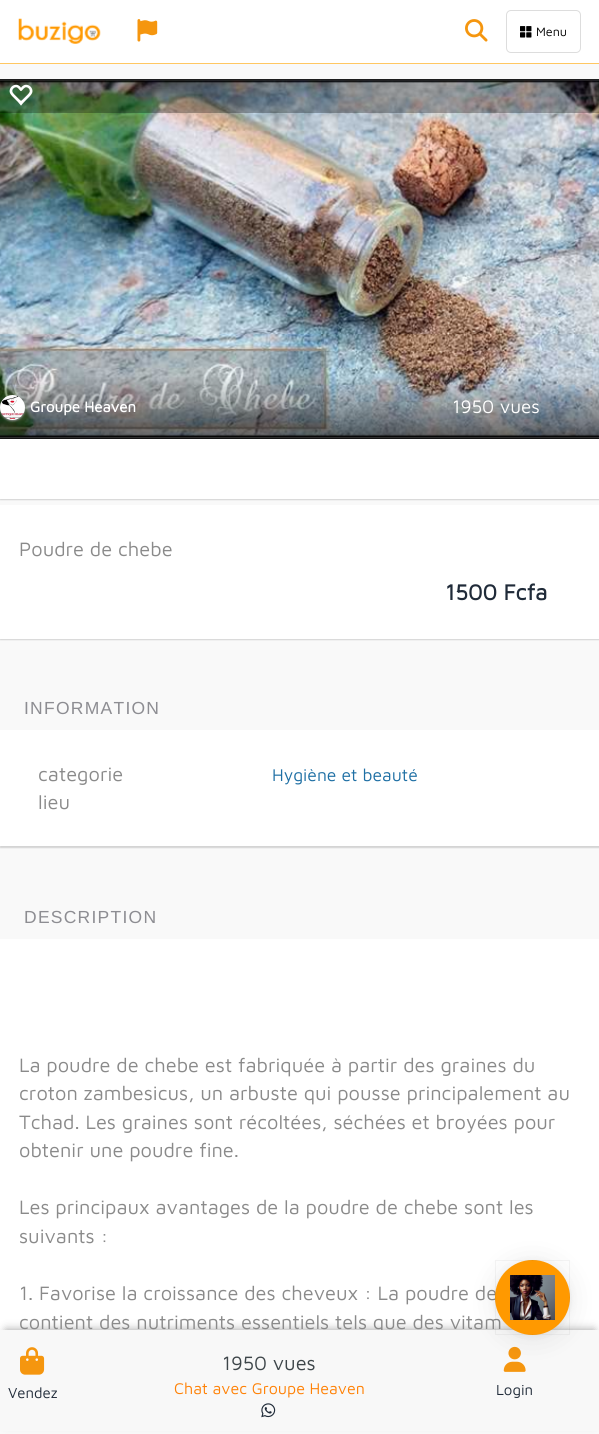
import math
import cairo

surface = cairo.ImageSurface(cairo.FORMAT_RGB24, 599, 1434)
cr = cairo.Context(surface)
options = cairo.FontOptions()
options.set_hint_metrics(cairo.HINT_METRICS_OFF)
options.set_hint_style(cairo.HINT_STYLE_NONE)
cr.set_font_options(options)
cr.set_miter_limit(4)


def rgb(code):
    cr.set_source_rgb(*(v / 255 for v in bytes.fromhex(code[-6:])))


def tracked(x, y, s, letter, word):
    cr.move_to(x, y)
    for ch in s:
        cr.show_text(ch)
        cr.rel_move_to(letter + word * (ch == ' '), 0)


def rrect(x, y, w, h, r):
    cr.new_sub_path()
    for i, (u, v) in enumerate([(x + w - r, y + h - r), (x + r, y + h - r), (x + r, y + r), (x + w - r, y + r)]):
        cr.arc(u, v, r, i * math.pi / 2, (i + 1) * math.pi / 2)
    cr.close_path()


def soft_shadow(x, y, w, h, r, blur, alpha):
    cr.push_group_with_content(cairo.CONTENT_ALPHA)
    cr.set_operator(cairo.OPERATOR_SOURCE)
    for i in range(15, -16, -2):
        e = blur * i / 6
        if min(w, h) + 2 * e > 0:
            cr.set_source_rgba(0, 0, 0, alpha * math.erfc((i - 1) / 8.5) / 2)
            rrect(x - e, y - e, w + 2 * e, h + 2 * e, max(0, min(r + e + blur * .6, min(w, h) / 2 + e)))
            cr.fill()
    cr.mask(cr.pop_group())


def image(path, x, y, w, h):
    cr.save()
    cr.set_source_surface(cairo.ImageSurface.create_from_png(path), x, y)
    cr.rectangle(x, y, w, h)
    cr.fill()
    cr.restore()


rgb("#f9f9f9")
cr.paint()
rgb("#ffffff")
cr.rectangle(0, 0, 599, 63)
cr.fill()
rgb("#ffc761")
cr.rectangle(0, 63, 599, 1)
cr.fill()
image("img/1.png", 18, 18, 83, 26)
image("img/2.png", 137, 19, 21, 23)
image("img/3.png", 465, 19, 23, 23)
rrect(506.5, 10.5, 74, 42, 4.5)
rgb("#dddddd")
cr.set_line_width(1)
cr.stroke()
image("img/4.png", 520, 26, 12, 12)
rgb("#ffffff")
cr.rectangle(0, 80, 599, 358)
cr.fill()
rgb("#000000")
soft_shadow(0, 440, 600, 60, 0, 0.5, 0.15)
cr.rectangle(-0.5, 79.5, 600, 359)
rgb("#333333")
cr.stroke()
image("img/5.png", 0, 79, 599, 359)
cr.set_source_rgba(0, 0, 0, 0.3)
cr.rectangle(0, 79, 599, 34)
cr.fill()
image("img/6.png", 9, 84, 24, 22)
gradient = cairo.LinearGradient(300, 375, 300, 439)
gradient.add_color_stop_rgba(0, 0, 0, 0, 0)
gradient.add_color_stop_rgba(1, 0, 0, 0, 0.6)
cr.set_source(gradient)
cr.rectangle(0, 377, 599, 62)
cr.fill()
rgb("#8d8d8d")
soft_shadow(0, 396, 25, 25, 12.5, 1, 1)
image("img/7.png", 0, 395, 25, 25)
rgb("#ffffff")
cr.rectangle(0, 439, 599, 60)
cr.fill()
rgb("#000000")
soft_shadow(0, 506, 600, 134, 0, 0.5, 0.15)
rgb("#ffffff")
cr.rectangle(0, 505, 599, 134)
cr.fill()
rgb("#000000")
soft_shadow(0, 731, 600, 117, 0, 0.5, 0.15)
rgb("#ffffff")
cr.rectangle(0, 730, 599, 116)
cr.fill()
cr.rectangle(0, 939, 599, 391)
cr.fill()
rgb("#9e9e9e")
soft_shadow(6, 1330, 588, 93, 0, 4.5, 1)
cr.select_font_face("Maven Pro")
cr.set_font_size(12.5)
rgb("#000000")
cr.move_to(536, 36)
cr.show_text("Menu")
cr.select_font_face("Maven Pro", cairo.FONT_SLANT_NORMAL, cairo.FONT_WEIGHT_BOLD)
cr.set_font_size(15)
rgb("#ffffff")
cr.move_to(30, 412)
cr.show_text("Groupe Heaven")
cr.select_font_face("Maven Pro")
cr.set_font_size(18.75)
cr.move_to(452, 413)
cr.show_text("1950 vues")
cr.set_font_size(20)
rgb("#8a8a8a")
cr.move_to(19, 556)
cr.show_text("Poudre de chebe")
cr.select_font_face("Maven Pro", cairo.FONT_SLANT_NORMAL, cairo.FONT_WEIGHT_BOLD)
cr.set_font_size(22.5)
rgb("#202b39")
cr.move_to(445, 600)
cr.show_text("1500 Fcfa")
cr.select_font_face("Liberation Sans")
cr.set_font_size(17.5)
rgb("#8d8d92")
tracked(24, 714, "INFORMATION", 1.25, 0)
cr.select_font_face("Maven Pro")
cr.set_font_size(20)
rgb("#8a8a8a")
cr.move_to(38, 781)
cr.show_text("categorie")
cr.set_font_size(17.5)
rgb("#1e6fa4")
cr.move_to(272, 781)
cr.show_text("Hygiène et beauté")
cr.set_font_size(20)
rgb("#8a8a8a")
cr.move_to(38, 809)
cr.show_text("lieu")
cr.select_font_face("Liberation Sans")
cr.set_font_size(17.5)
rgb("#8d8d92")
tracked(24, 923, "DESCRIPTION", 1.25, 0)
cr.select_font_face("Maven Pro")
cr.set_font_size(20)
rgb("#8a8a8a")
for x, y, s in [
    (19, 1072, "La poudre de chebe est fabriquée à partir des graines du"),
    (19, 1100, "croton zambesicus, un arbuste qui pousse principalement au"),
    (19, 1129, "Tchad. Les graines sont récoltées, séchées et broyées pour"),
    (19, 1157, "obtenir une poudre fine."),
    (19, 1214, "Les principaux avantages de la poudre de chebe sont les"),
    (19, 1243, "suivants :"),
    (19, 1300, "1. Favorise la croissance des cheveux : La poudre de"),
    (19, 1329, "contient des nutriments essentiels tels que des vitam"),
]:
    cr.move_to(x, y)
    cr.show_text(s)
rgb("#f8f8f8")
cr.rectangle(0, 1330, 599, 101)
cr.fill()
image("img/8.png", 20, 1347, 25, 28)
cr.set_font_size(15)
rgb("#202b39")
cr.move_to(8, 1398)
cr.show_text("Vendez")
cr.set_font_size(20)
rgb("#3d4549")
cr.move_to(222, 1370)
cr.show_text("1950 vues")
cr.set_font_size(16)
rgb("#ff8105")
cr.move_to(174, 1394)
cr.show_text("Chat avec Groupe Heaven")
image("img/9.png", 261, 1403, 15, 15)
image("img/10.png", 503, 1346, 23, 26)
cr.set_font_size(15)
rgb("#202b39")
cr.move_to(496, 1395)
cr.show_text("Login")
rgb("#000000")
soft_shadow(495, 1263, 75, 75, 37.5, 15, 0.08)
soft_shadow(495, 1261, 75, 75, 37.5, 4, 0.06)
rgb("#ff9900")
cr.arc(532.5, 1297.5, 37.5, 0, 2 * math.pi)
cr.fill()
cr.rectangle(495.5, 1260.5, 74, 74)
cr.set_source_rgba(0, 0, 0, 0.04)
cr.stroke()
image("img/11.png", 510, 1275, 45, 45)
surface.write_to_png("page.png")
